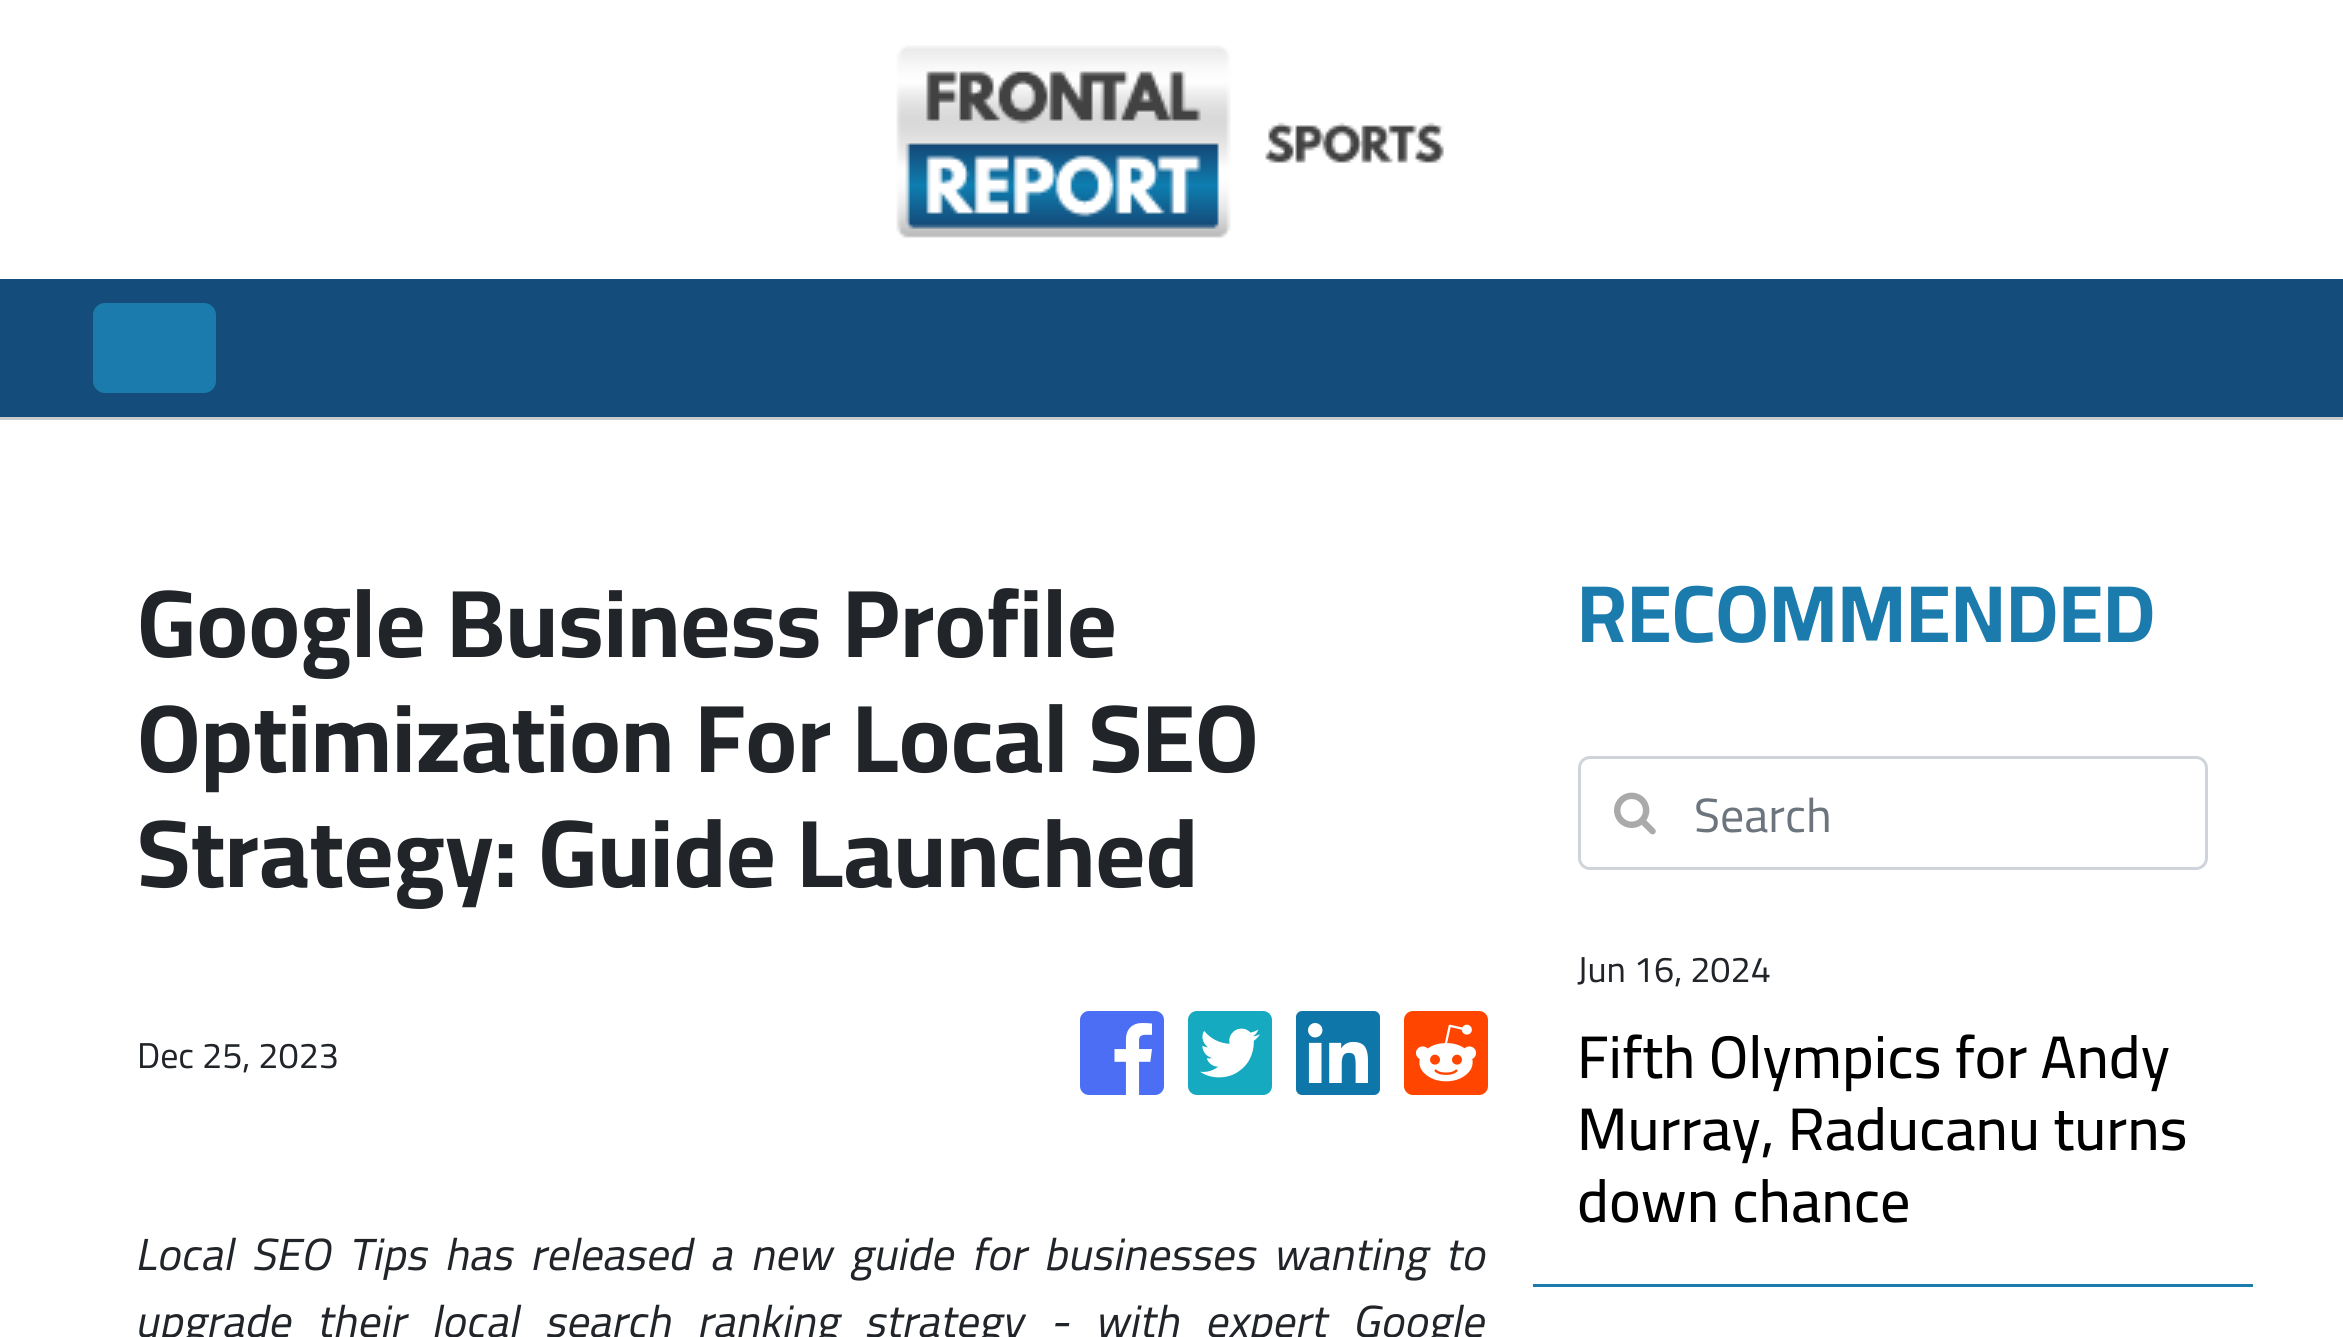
import math
import cairo

surface = cairo.ImageSurface(cairo.FORMAT_RGB24, 2343, 1337)
cr = cairo.Context(surface)
options = cairo.FontOptions()
options.set_hint_metrics(cairo.HINT_METRICS_OFF)
options.set_hint_style(cairo.HINT_STYLE_NONE)
cr.set_font_options(options)
cr.set_miter_limit(4)


def rgb(code):
    cr.set_source_rgb(*(v / 255 for v in bytes.fromhex(code[-6:])))


def tracked(x, y, s, letter, word):
    cr.move_to(x, y)
    for ch in s:
        cr.show_text(ch)
        cr.rel_move_to(letter + word * (ch == ' '), 0)


def rrect(x, y, w, h, r):
    cr.new_sub_path()
    for i, (u, v) in enumerate([(x + w - r, y + h - r), (x + r, y + h - r), (x + r, y + r), (x + w - r, y + r)]):
        cr.arc(u, v, r, i * math.pi / 2, (i + 1) * math.pi / 2)
    cr.close_path()


def image(path, x, y, w, h):
    cr.save()
    cr.set_source_surface(cairo.ImageSurface.create_from_png(path), x, y)
    cr.rectangle(x, y, w, h)
    cr.fill()
    cr.restore()


rgb("#ffffff")
cr.paint()
image("img/1.png", 896, 45, 548, 193)
rgb("#144d7b")
cr.rectangle(0, 279, 2343, 138)
cr.fill()
rgb("#cacaca")
cr.rectangle(0, 417, 2343, 3)
cr.fill()
rgb("#1c7bad")
rrect(93, 303, 123, 90, 12)
cr.fill()
image("img/2.png", 1080, 1011, 84, 84)
image("img/3.png", 1188, 1011, 84, 84)
image("img/4.png", 1296, 1011, 84, 84)
image("img/5.png", 1404, 1011, 84, 84)
rrect(1579.5, 757.5, 627, 111, 10.5)
rgb("#ced4da")
cr.set_line_width(3)
cr.stroke()
image("img/6.png", 1614, 792, 42, 43)
rgb("#1c7bad")
cr.rectangle(1533, 1284, 720, 3)
cr.fill()
cr.select_font_face("Cairo", cairo.FONT_SLANT_NORMAL, cairo.FONT_WEIGHT_BOLD)
cr.set_font_size(96)
rgb("#212529")
for x, y, s in [
    (137, 657, "Google Business Profile"),
    (137, 772, "Optimization For Local SEO"),
    (137, 887, "Strategy: Guide Launched"),
]:
    cr.move_to(x, y)
    cr.show_text(s)
cr.select_font_face("Cairo")
cr.set_font_size(36)
cr.move_to(137, 1068)
cr.show_text("Dec 25, 2023")
cr.select_font_face("Cairo", cairo.FONT_SLANT_ITALIC)
cr.set_font_size(45)
tracked(137, 1270, "Local SEO Tips has released a new guide for businesses wanting to", 0, 8)
tracked(137, 1337, "upgrade their local search ranking strategy - with expert Google", 0, 16)
cr.select_font_face("Cairo", cairo.FONT_SLANT_NORMAL, cairo.FONT_WEIGHT_BOLD)
cr.set_font_size(81)
rgb("#1c7bad")
cr.move_to(1577, 642)
cr.show_text("RECOMMENDED")
cr.select_font_face("Cairo")
cr.set_font_size(48)
rgb("#6c757d")
cr.move_to(1694, 832)
cr.show_text("Search")
cr.set_font_size(36)
rgb("#212529")
cr.move_to(1577, 982)
cr.show_text("Jun 16, 2024")
cr.select_font_face("Cairo Medium")
cr.set_font_size(60)
rgb("#000000")
for x, y, s in [
    (1577, 1078, "Fifth Olympics for Andy"),
    (1577, 1150, "Murray, Raducanu turns"),
    (1577, 1222, "down chance"),
]:
    cr.move_to(x, y)
    cr.show_text(s)
surface.write_to_png("page.png")
